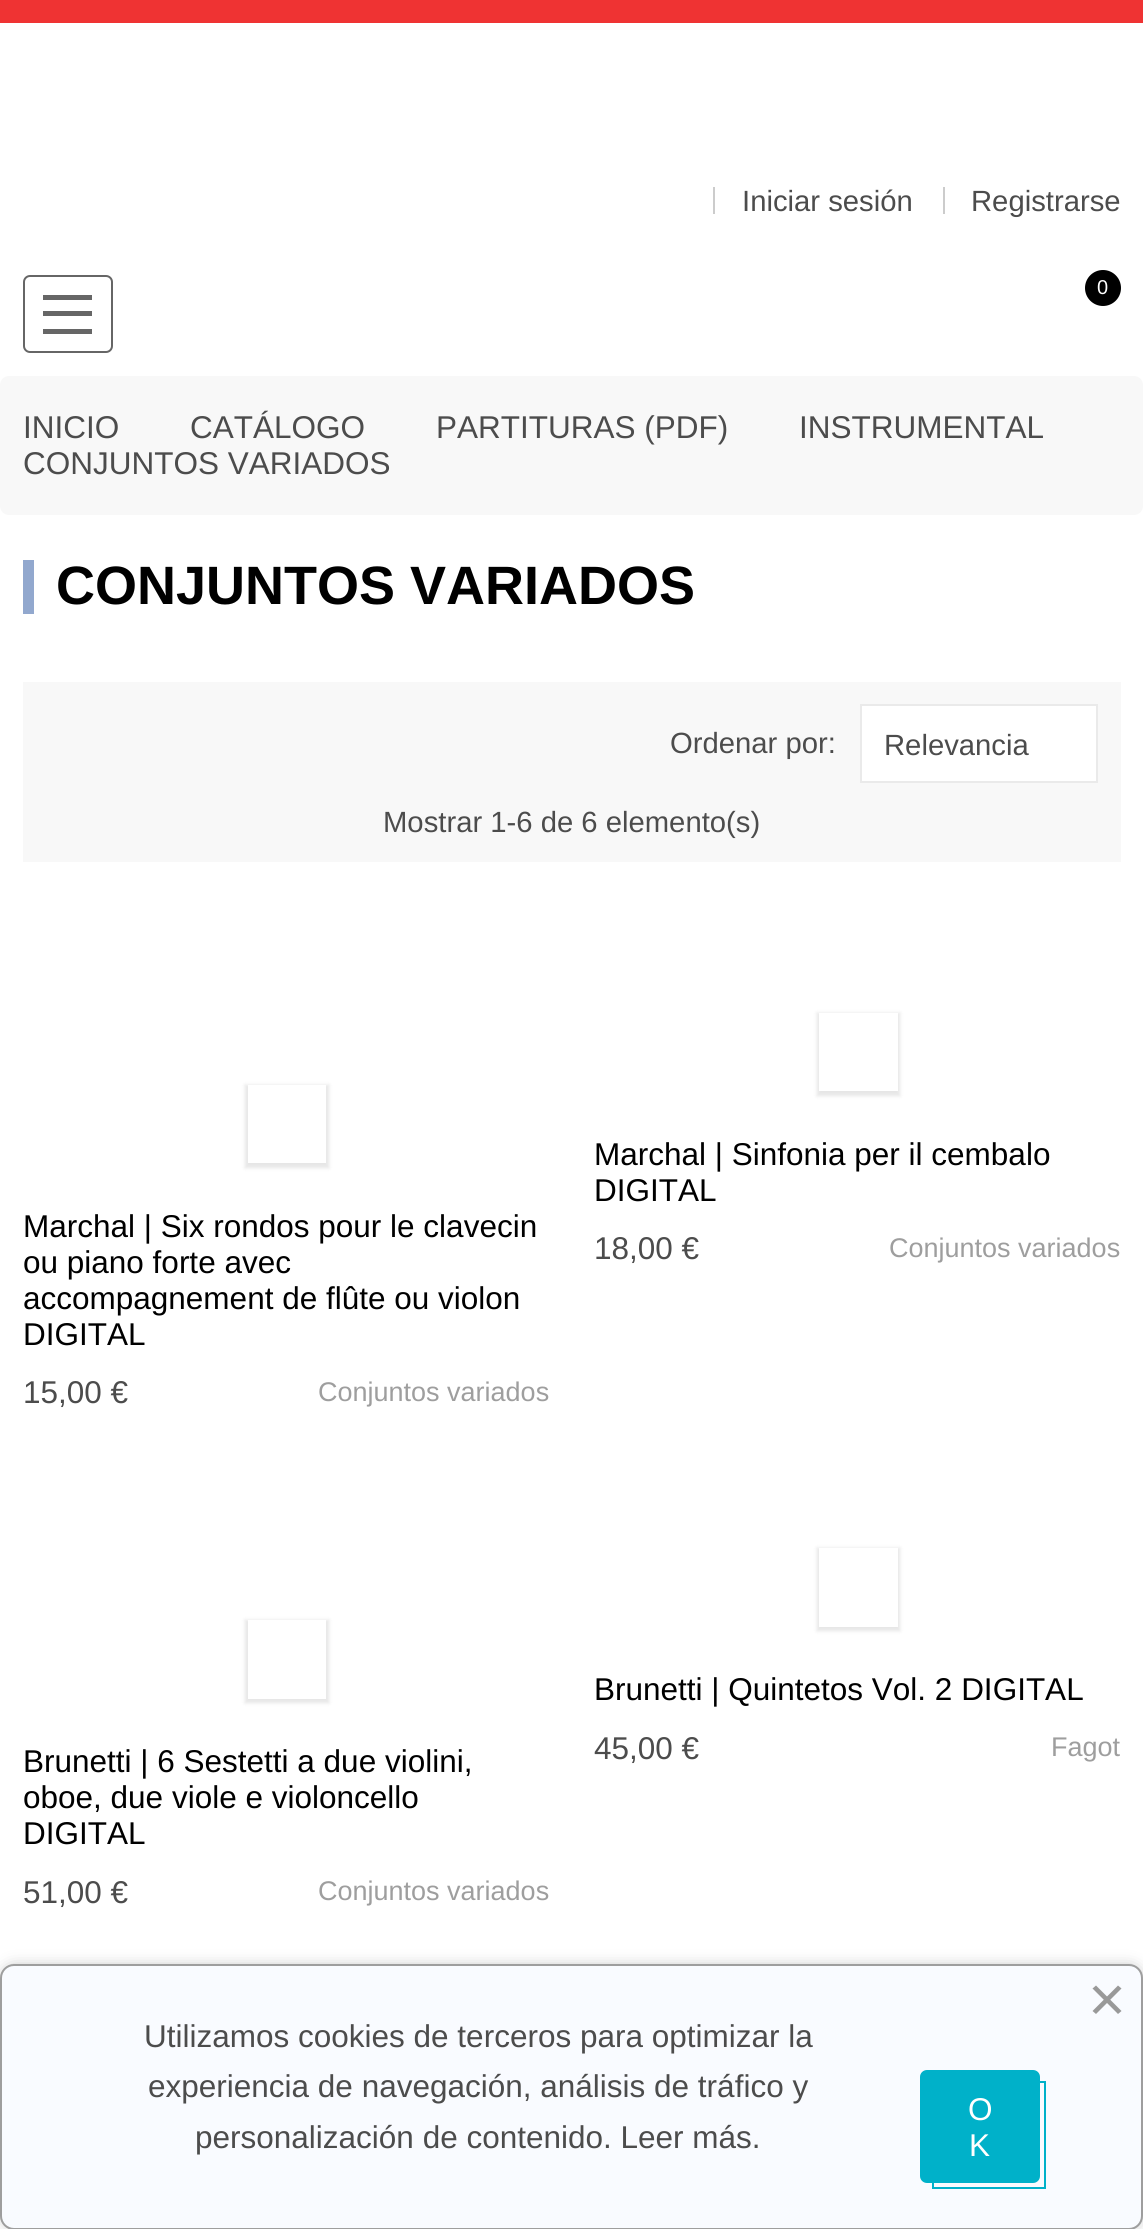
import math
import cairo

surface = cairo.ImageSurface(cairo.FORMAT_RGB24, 1143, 2229)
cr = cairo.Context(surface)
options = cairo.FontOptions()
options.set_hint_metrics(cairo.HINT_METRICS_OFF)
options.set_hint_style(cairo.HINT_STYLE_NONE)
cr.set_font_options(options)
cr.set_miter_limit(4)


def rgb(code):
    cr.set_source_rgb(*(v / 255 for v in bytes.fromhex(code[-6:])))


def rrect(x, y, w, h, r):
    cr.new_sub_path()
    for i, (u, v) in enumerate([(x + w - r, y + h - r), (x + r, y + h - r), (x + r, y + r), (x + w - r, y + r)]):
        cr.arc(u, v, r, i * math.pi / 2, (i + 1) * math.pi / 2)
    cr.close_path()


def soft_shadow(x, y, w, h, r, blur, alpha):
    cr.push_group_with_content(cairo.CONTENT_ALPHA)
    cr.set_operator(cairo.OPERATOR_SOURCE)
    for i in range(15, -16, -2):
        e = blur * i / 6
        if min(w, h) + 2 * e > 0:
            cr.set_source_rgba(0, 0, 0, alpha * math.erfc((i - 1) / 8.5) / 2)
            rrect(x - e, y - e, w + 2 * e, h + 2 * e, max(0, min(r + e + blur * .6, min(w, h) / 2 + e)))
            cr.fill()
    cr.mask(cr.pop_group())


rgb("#ffffff")
cr.paint()
for x, y, w, h, color in [
    (0, 0, 1143, 23, "#ef3333"),
    (713, 187, 2, 27, "#cccccc"),
    (943, 187, 2, 27, "#cccccc"),
]:
    rgb(color)
    cr.rectangle(x, y, w, h)
    cr.fill()
rrect(24, 276, 88, 76, 6)
rgb("#666666")
cr.stroke()
for x, y, w, h, color in [
    (43, 295, 49, 5, "#666666"),
    (43, 329, 49, 5, "#666666"),
    (43, 311, 49, 5, "#666666"),
]:
    rgb(color)
    cr.rectangle(x, y, w, h)
    cr.fill()
rgb("#000000")
cr.arc(1103, 288, 18, 0, 2 * math.pi)
cr.fill()
rgb("#f8f8f8")
rrect(0, 376, 1143, 139, 9)
cr.fill()
rgb("#92a8ce")
cr.rectangle(23, 560, 11, 54)
cr.fill()
rgb("#f8f8f8")
cr.rectangle(23, 682, 1098, 180)
cr.fill()
rgb("#ffffff")
cr.rectangle(861, 705, 236, 77)
cr.fill_preserve()
rgb("#eaeaea")
cr.stroke()
cr.save()
cr.set_fill_rule(cairo.FILL_RULE_EVEN_ODD)
cr.new_path()
cr.move_to(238, 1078)
cr.line_to(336, 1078)
cr.line_to(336, 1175)
cr.line_to(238, 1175)
cr.close_path()
cr.move_to(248, 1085)
cr.line_to(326, 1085)
cr.line_to(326, 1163)
cr.line_to(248, 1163)
cr.close_path()
cr.clip()
rgb("#000000")
soft_shadow(245, 1085, 84, 83, 0, 2, 0.1)
cr.restore()
rgb("#000000")
soft_shadow(817, 1013, 83, 83, 0, 2, 0.1)
rgb("#ffffff")
cr.rectangle(819, 1013, 79, 78)
cr.fill()
rgb("#000000")
soft_shadow(817, 1548, 83, 83, 0, 2, 0.1)
rgb("#ffffff")
cr.rectangle(819, 1548, 79, 79)
cr.fill()
rgb("#000000")
soft_shadow(245, 1620, 84, 83, 0, 2, 0.1)
rgb("#ffffff")
cr.rectangle(248, 1620, 78, 79)
cr.fill()
rgb("#9e9e9e")
soft_shadow(5, 1969, 1134, 256, 9, 8, 1)
rgb("#f9fbff")
rrect(1, 1965, 1141, 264, 13)
cr.fill_preserve()
rgb("#9e9e9e")
cr.stroke()
rgb("#999999")
cr.new_path()
cr.move_to(1092.5, 2011)
cr.line_to(1118, 1985.5)
cr.line_to(1121.5, 1988.5)
cr.line_to(1096, 2014)
cr.close_path()
cr.fill()
cr.new_path()
cr.move_to(1096, 1985.5)
cr.line_to(1121.5, 2011)
cr.line_to(1118, 2014)
cr.line_to(1092.5, 1988.5)
cr.close_path()
cr.fill()
rgb("#00b1c9")
rrect(921, 2071, 118, 111, 6)
cr.fill_preserve()
cr.stroke()
for x, y, w, h, color in [
    (1037, 2081, 9, 2, "#00b1c9"),
    (932, 2187, 114, 2, "#00b1c9"),
    (1044, 2081, 2, 108, "#00b1c9"),
    (932, 2180, 2, 9, "#00b1c9"),
]:
    rgb(color)
    cr.rectangle(x, y, w, h)
    cr.fill()
cr.select_font_face("Liberation Sans")
cr.set_font_size(29.25)
rgb("#4c4c4c")
cr.move_to(742, 211)
cr.show_text("Iniciar sesión")
cr.move_to(971, 211)
cr.show_text("Registrarse")
cr.set_font_size(20)
rgb("#ffffff")
cr.move_to(1097, 294)
cr.show_text("0")
cr.set_font_size(31.5)
rgb("#4c4c4c")
for x, y, s in [
    (23, 438, "INICIO"),
    (190, 438, "CATÁLOGO"),
    (436, 438, "PARTITURAS (PDF)"),
    (799, 438, "INSTRUMENTAL"),
    (23, 474, "CONJUNTOS VARIADOS"),
]:
    cr.move_to(x, y)
    cr.show_text(s)
cr.select_font_face("Liberation Sans", cairo.FONT_SLANT_NORMAL, cairo.FONT_WEIGHT_BOLD)
cr.set_font_size(54)
rgb("#000000")
cr.move_to(56, 604)
cr.show_text("CONJUNTOS VARIADOS")
cr.select_font_face("Liberation Sans")
cr.set_font_size(29.25)
rgb("#4c4c4c")
for x, y, s in [
    (670, 753, "Ordenar por:"),
    (884, 755, "Relevancia"),
    (383, 832, "Mostrar 1-6 de 6 elemento(s)"),
]:
    cr.move_to(x, y)
    cr.show_text(s)
cr.set_font_size(31.5)
rgb("#000000")
for x, y, s in [
    (23, 1237, "Marchal | Six rondos pour le clavecin"),
    (23, 1273, "ou piano forte avec"),
    (23, 1309, "accompagnement de flûte ou violon"),
    (23, 1345, "DIGITAL"),
]:
    cr.move_to(x, y)
    cr.show_text(s)
rgb("#4c4c4c")
cr.move_to(23, 1403)
cr.show_text("15,00 €")
cr.set_font_size(27)
rgb("#9e9e9e")
cr.move_to(318, 1401)
cr.show_text("Conjuntos variados")
cr.set_font_size(31.5)
rgb("#000000")
cr.move_to(594, 1165)
cr.show_text("Marchal | Sinfonia per il cembalo")
cr.move_to(594, 1201)
cr.show_text("DIGITAL")
rgb("#4c4c4c")
cr.move_to(594, 1259)
cr.show_text("18,00 €")
cr.set_font_size(27)
rgb("#9e9e9e")
cr.move_to(889, 1257)
cr.show_text("Conjuntos variados")
cr.set_font_size(31.5)
rgb("#000000")
cr.move_to(594, 1700)
cr.show_text("Brunetti | Quintetos Vol. 2 DIGITAL")
rgb("#4c4c4c")
cr.move_to(594, 1759)
cr.show_text("45,00 €")
cr.set_font_size(27)
rgb("#9e9e9e")
cr.move_to(1051, 1756)
cr.show_text("Fagot")
cr.set_font_size(31.5)
rgb("#000000")
for x, y, s in [
    (23, 1772, "Brunetti | 6 Sestetti a due violini,"),
    (23, 1808, "oboe, due viole e violoncello"),
    (23, 1844, "DIGITAL"),
]:
    cr.move_to(x, y)
    cr.show_text(s)
rgb("#4c4c4c")
cr.move_to(23, 1903)
cr.show_text("51,00 €")
cr.set_font_size(27)
rgb("#9e9e9e")
cr.move_to(318, 1900)
cr.show_text("Conjuntos variados")
cr.set_font_size(31.5)
rgb("#4c4c4c")
for x, y, s in [
    (144, 2047, "Utilizamos cookies de terceros para optimizar la"),
    (148, 2097, "experiencia de navegación, análisis de tráfico y"),
    (195, 2148, "personalización de contenido. Leer más."),
]:
    cr.move_to(x, y)
    cr.show_text(s)
rgb("#ffffff")
cr.move_to(968, 2120)
cr.show_text("O")
cr.move_to(969, 2156)
cr.show_text("K")
surface.write_to_png("page.png")
